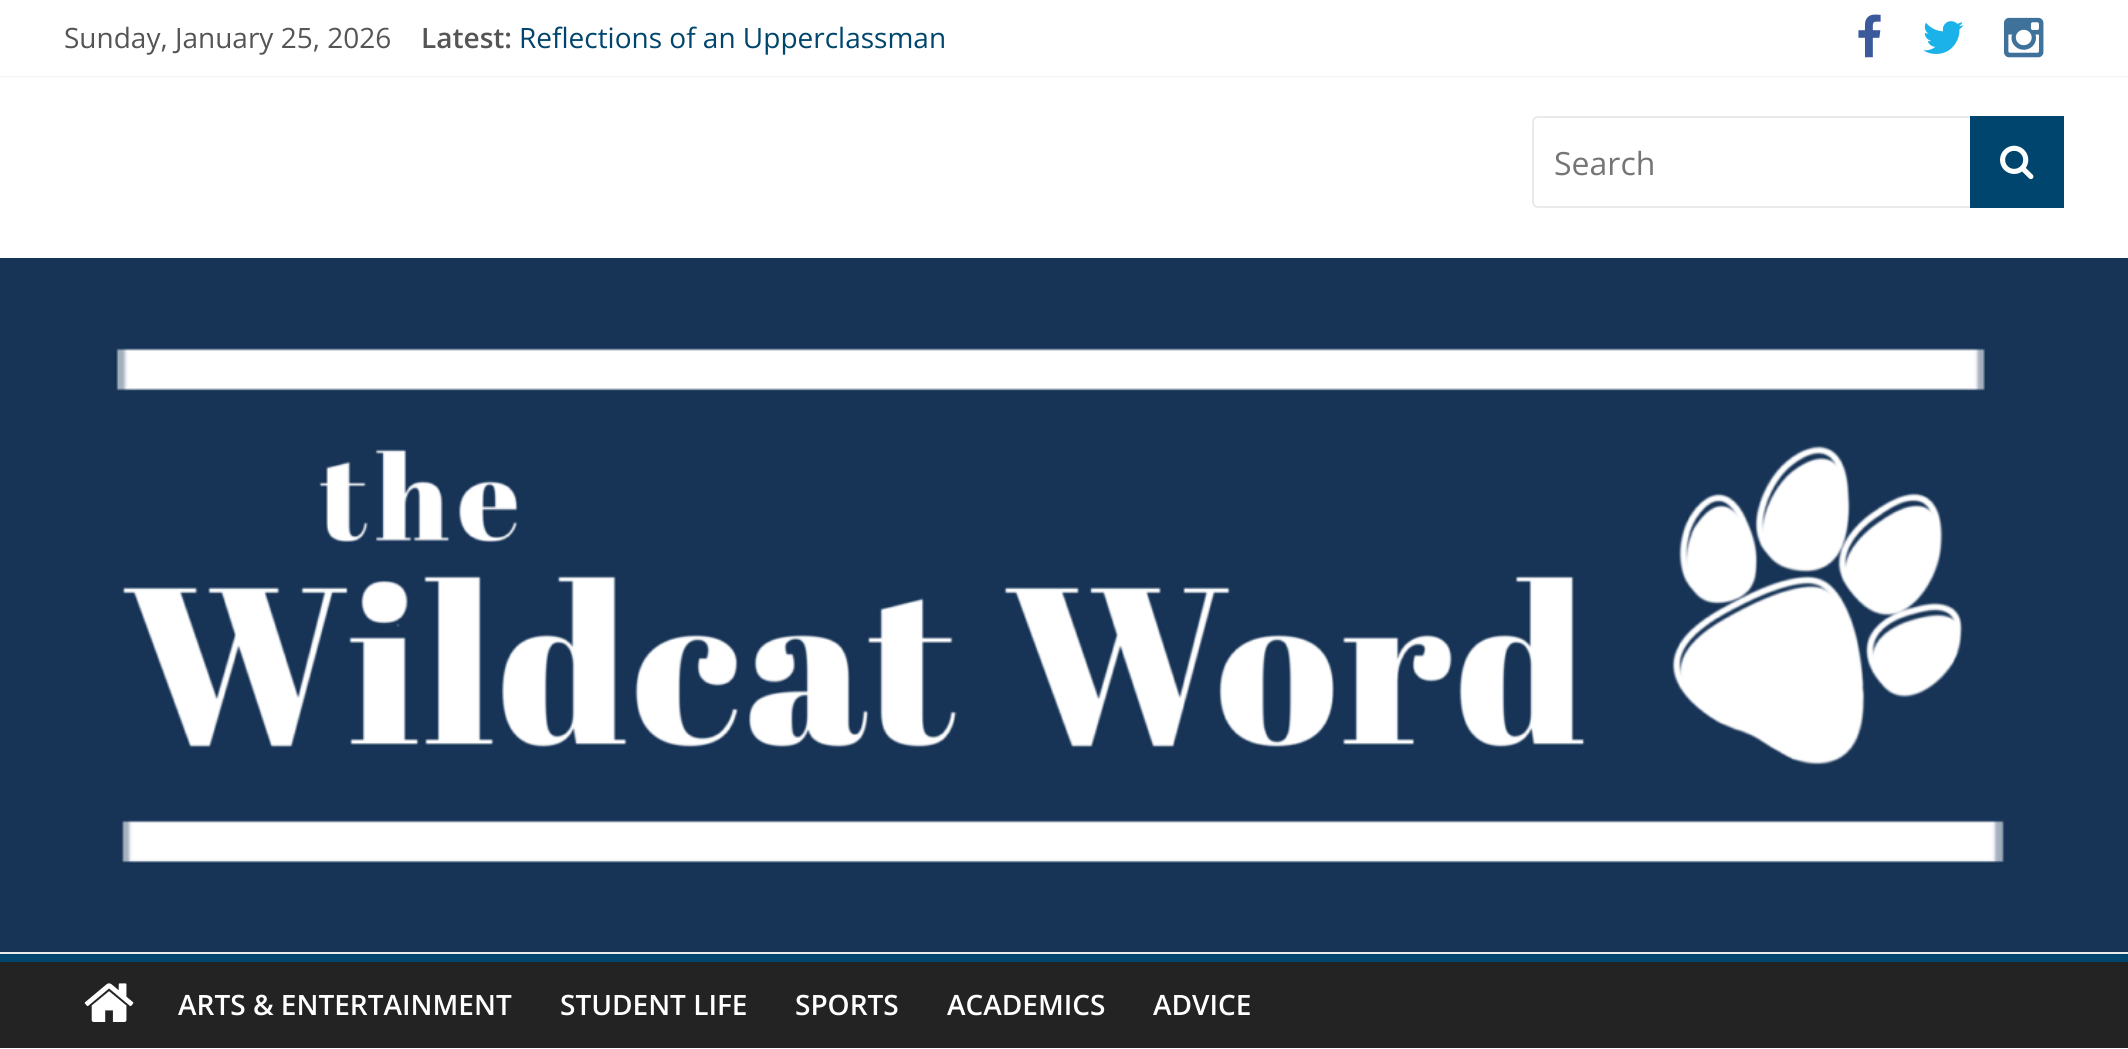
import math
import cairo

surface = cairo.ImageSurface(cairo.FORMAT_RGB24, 2128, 1049)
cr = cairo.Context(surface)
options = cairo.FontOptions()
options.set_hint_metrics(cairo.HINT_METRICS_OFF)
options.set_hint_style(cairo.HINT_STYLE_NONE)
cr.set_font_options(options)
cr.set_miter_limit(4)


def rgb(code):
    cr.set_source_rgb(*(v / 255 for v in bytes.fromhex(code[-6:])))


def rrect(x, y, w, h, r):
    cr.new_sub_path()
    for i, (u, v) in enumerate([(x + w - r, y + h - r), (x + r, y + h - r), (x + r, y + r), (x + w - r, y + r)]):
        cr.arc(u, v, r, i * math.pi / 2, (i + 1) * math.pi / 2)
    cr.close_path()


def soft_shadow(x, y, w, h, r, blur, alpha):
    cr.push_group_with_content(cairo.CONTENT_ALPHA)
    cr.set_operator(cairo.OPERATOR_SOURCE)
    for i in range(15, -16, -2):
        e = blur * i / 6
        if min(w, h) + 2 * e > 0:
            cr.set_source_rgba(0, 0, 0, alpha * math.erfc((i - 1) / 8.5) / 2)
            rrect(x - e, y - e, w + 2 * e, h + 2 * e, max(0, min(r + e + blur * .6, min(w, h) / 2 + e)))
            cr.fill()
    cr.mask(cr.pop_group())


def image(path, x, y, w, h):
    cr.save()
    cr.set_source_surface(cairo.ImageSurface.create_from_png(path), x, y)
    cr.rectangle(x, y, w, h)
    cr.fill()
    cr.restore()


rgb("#ffffff")
cr.paint()
cr.save()
cr.rectangle(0, 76, 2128, 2)
cr.clip()
rgb("#000000")
soft_shadow(0, 0, 2128, 76, 0, 2, 0.1)
cr.restore()
image("img/1.png", 1858, 14, 23, 44)
image("img/2.png", 1923, 21, 41, 33)
image("img/3.png", 2004, 17, 40, 41)
rrect(1533, 117, 530, 90, 5)
rgb("#eaeaea")
cr.stroke()
rgb("#00456d")
cr.rectangle(1970, 116, 94, 92)
cr.fill()
image("img/4.png", 2000, 145, 34, 35)
image("img/5.png", 0, 258, 2128, 694)
for x, y, w, h, color in [
    (0, 952, 2128, 2, "#eaeaea"),
    (0, 962, 2128, 86, "#232323"),
    (0, 954, 2128, 8, "#00456d"),
]:
    rgb(color)
    cr.rectangle(x, y, w, h)
    cr.fill()
image("img/6.png", 84, 983, 50, 39)
cr.select_font_face("Open Sans")
cr.set_font_size(28)
rgb("#555555")
cr.move_to(64, 48)
cr.show_text("Sunday, January 25, 2026")
cr.select_font_face("Open Sans SemiBold")
cr.move_to(421, 48)
cr.show_text("Latest:")
cr.select_font_face("Open Sans")
rgb("#00456d")
cr.move_to(519, 48)
cr.show_text("Reflections of an Upperclassman")
cr.set_font_size(32)
rgb("#757575")
cr.move_to(1554, 175)
cr.show_text("Search")
cr.select_font_face("Open Sans SemiBold")
cr.set_font_size(28)
rgb("#ffffff")
for x, y, s in [
    (178, 1015, "ARTS & ENTERTAINMENT"),
    (560, 1015, "STUDENT LIFE"),
    (795, 1015, "SPORTS"),
    (947, 1015, "ACADEMICS"),
    (1153, 1015, "ADVICE"),
]:
    cr.move_to(x, y)
    cr.show_text(s)
surface.write_to_png("page.png")
